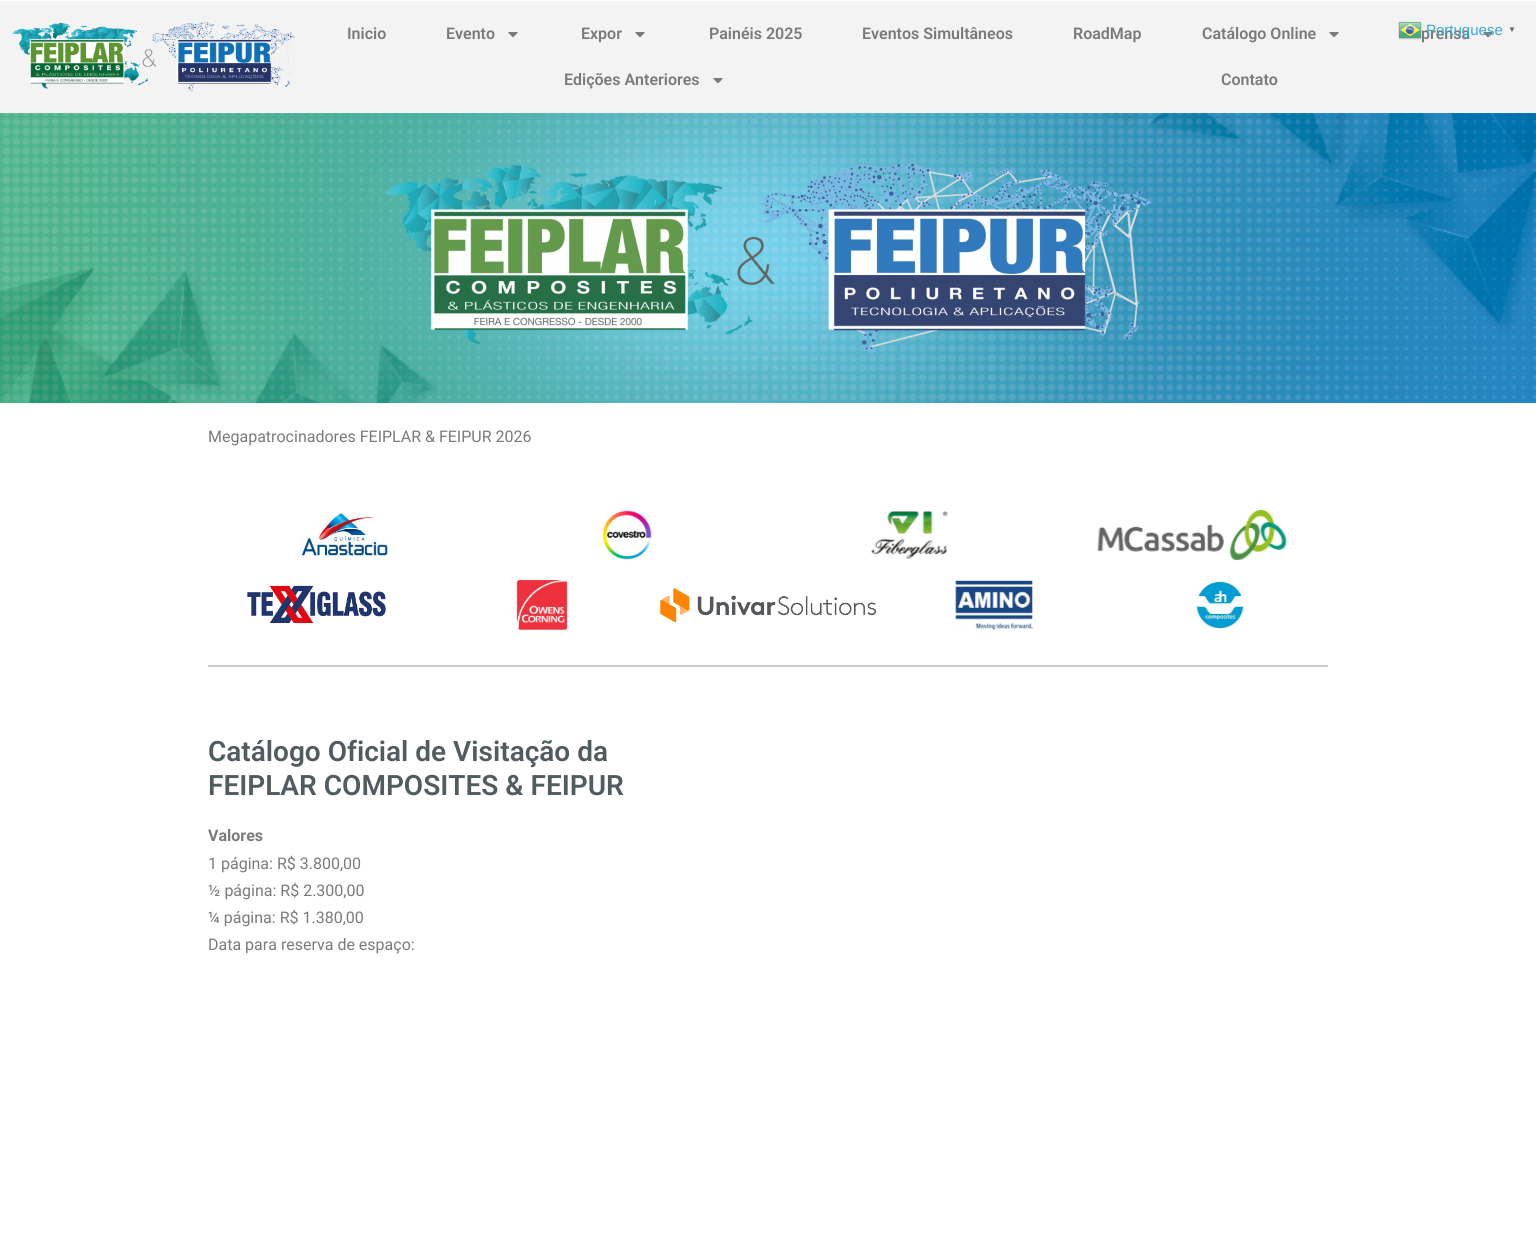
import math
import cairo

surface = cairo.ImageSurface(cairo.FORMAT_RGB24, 1536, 1233)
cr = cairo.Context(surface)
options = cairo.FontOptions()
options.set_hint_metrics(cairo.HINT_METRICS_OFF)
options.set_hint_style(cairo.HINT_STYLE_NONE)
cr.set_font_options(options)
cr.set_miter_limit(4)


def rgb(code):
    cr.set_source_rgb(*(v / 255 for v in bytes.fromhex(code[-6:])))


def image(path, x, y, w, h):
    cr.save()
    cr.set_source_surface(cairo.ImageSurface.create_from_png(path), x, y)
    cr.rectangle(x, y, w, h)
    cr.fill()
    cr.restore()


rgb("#ffffff")
cr.paint()
rgb("#f3f3f3")
cr.rectangle(0, 1, 1536, 112)
cr.fill()
image("img/1.png", 12, 22, 283, 70)
image("img/2.png", 508, 32, 10, 6)
image("img/2.png", 635, 32, 10, 6)
image("img/2.png", 1329, 32, 10, 6)
image("img/2.png", 1483, 32, 10, 6)
image("img/2.png", 713, 78, 10, 6)
image("img/3.png", 0, 113, 1536, 290)
image("img/4.png", 384, 163, 768, 190)
image("img/5.png", 300, 512, 89, 48)
image("img/6.png", 602, 510, 50, 50)
image("img/7.png", 871, 511, 77, 49)
image("img/8.png", 1097, 510, 190, 50)
image("img/9.png", 247, 585, 139, 39)
image("img/10.png", 516, 580, 52, 50)
image("img/11.png", 660, 588, 216, 35)
image("img/12.png", 955, 580, 79, 50)
image("img/13.png", 1195, 580, 49, 49)
rgb("#cbcbcb")
cr.rectangle(208, 665, 1120, 2)
cr.fill()
cr.select_font_face("Roboto SemiBold")
cr.set_font_size(16)
rgb("#7a7a7a")
for x, y, s in [
    (347, 39, "Inicio"),
    (446, 39, "Evento"),
    (581, 39, "Expor"),
    (709, 39, "Painéis 2025"),
    (862, 39, "Eventos Simultâneos"),
    (1073, 39, "RoadMap"),
    (1202, 39, "Catálogo Online"),
    (1421, 39, "prensa"),
    (564, 85, "Edições Anteriores"),
    (1221, 85, "Contato"),
]:
    cr.move_to(x, y)
    cr.show_text(s)
cr.select_font_face("Roboto")
cr.move_to(208, 442)
cr.show_text("Megapatrocinadores FEIPLAR & FEIPUR 2026")
cr.select_font_face("Roboto SemiBold")
cr.set_font_size(28)
rgb("#515c61")
cr.move_to(208, 761)
cr.show_text("Catálogo Oficial de Visitação da")
cr.move_to(208, 795)
cr.show_text("FEIPLAR COMPOSITES & FEIPUR")
cr.select_font_face("Roboto", cairo.FONT_SLANT_NORMAL, cairo.FONT_WEIGHT_BOLD)
cr.set_font_size(16)
rgb("#7a7a7a")
cr.move_to(208, 841)
cr.show_text("Valores")
cr.select_font_face("Roboto")
for x, y, s in [
    (208, 869, "1 página: R$ 3.800,00"),
    (208, 896, "½ página: R$ 2.300,00"),
    (208, 923, "¼ página: R$ 1.380,00"),
    (208, 950, "Data para reserva de espaço:"),
]:
    cr.move_to(x, y)
    cr.show_text(s)
image("img/14.png", 1398, 21, 24, 19)
cr.select_font_face("Liberation Sans")
cr.set_font_size(15)
rgb("#3ba9d2")
cr.move_to(1426, 35)
cr.show_text("Portuguese")
cr.select_font_face("Liberation Sans", cairo.FONT_SLANT_NORMAL, cairo.FONT_WEIGHT_BOLD)
cr.set_font_size(8)
rgb("#666666")
cr.move_to(1508, 32)
cr.show_text("▼")
surface.write_to_png("page.png")
